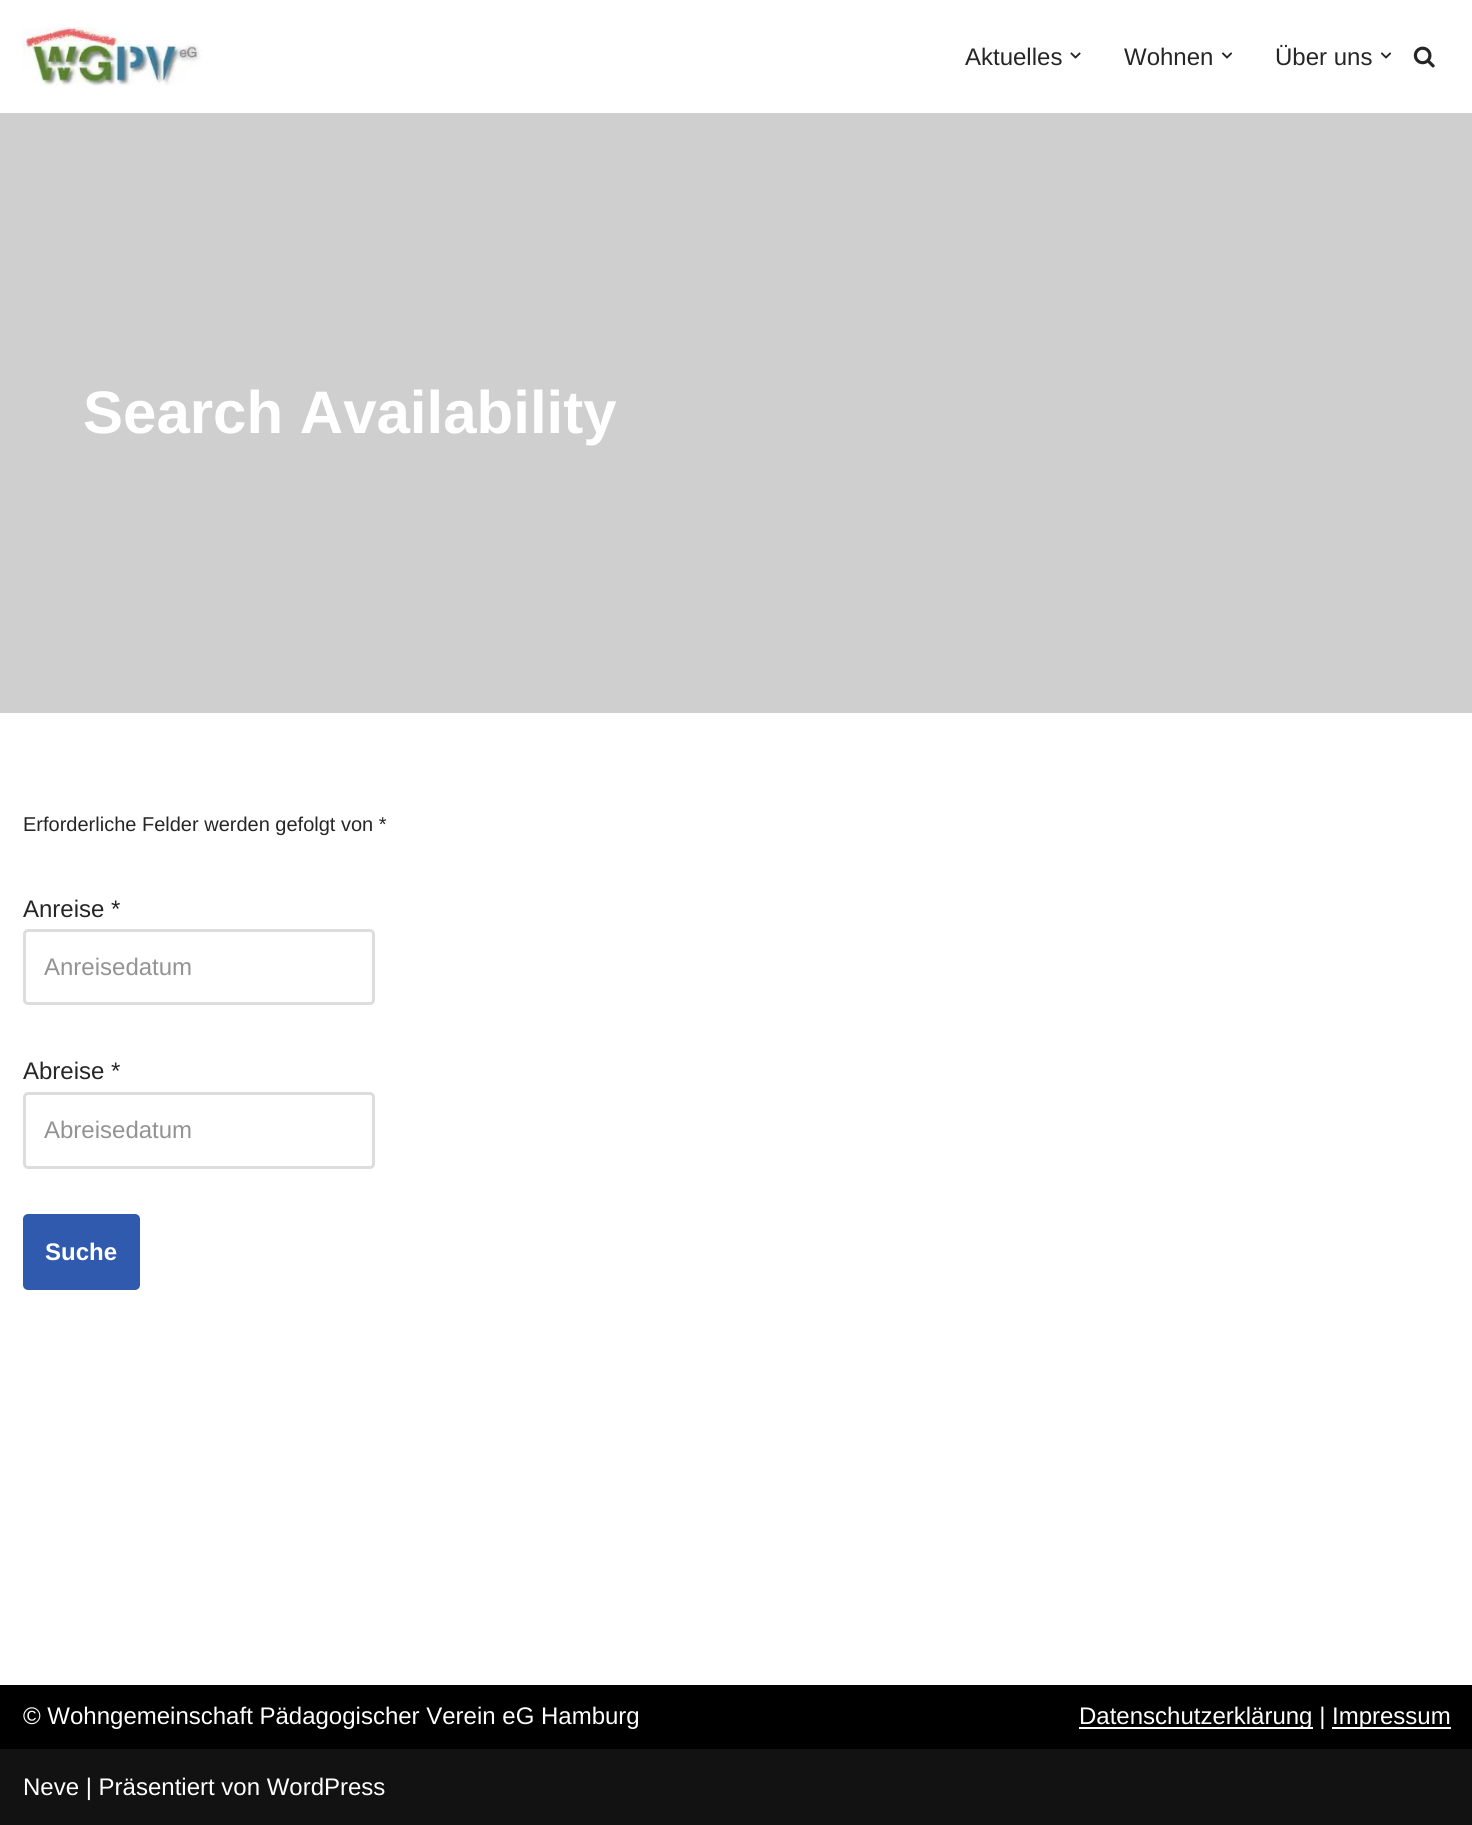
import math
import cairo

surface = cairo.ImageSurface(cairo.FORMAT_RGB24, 1472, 1825)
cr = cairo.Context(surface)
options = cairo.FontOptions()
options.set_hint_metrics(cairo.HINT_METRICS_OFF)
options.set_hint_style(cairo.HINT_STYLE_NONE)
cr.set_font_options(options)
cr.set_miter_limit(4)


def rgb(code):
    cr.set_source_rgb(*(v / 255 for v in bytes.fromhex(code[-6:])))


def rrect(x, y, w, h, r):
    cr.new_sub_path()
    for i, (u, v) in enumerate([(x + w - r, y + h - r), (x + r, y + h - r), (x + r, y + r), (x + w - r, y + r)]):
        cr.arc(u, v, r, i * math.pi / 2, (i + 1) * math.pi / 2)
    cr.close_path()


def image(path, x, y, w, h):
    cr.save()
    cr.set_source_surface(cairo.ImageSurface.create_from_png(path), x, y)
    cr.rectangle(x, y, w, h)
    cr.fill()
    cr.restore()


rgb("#ffffff")
cr.paint()
image("img/1.png", 22, 27, 180, 59)
image("img/2.png", 1070, 52, 11, 7)
image("img/3.png", 1221, 52, 12, 7)
image("img/3.png", 1380, 52, 12, 7)
image("img/4.png", 1413, 46, 22, 22)
cr.set_source_rgba(0.071, 0.071, 0.071, 0.2)
cr.rectangle(0, 113, 1472, 600)
cr.fill()
rrect(24.5, 930.5, 349, 73, 3.5)
rgb("#dddddd")
cr.set_line_width(3)
cr.stroke()
rrect(24.5, 1093.5, 349, 74, 3.5)
cr.stroke()
rgb("#2f5aae")
rrect(23, 1214, 117, 76, 5)
cr.fill()
for x, y, w, h, color in [
    (0, 1685, 1472, 64, "#000000"),
    (1079, 1727, 234, 2, "#ffffff"),
    (1332, 1727, 119, 2, "#ffffff"),
    (0, 1749, 1472, 76, "#121212"),
]:
    rgb(color)
    cr.rectangle(x, y, w, h)
    cr.fill()
cr.select_font_face("Liberation Sans")
cr.set_font_size(24)
rgb("#272626")
for x, y, s in [
    (965, 65, "Aktuelles"),
    (1124, 65, "Wohnen"),
    (1275, 65, "Über uns"),
]:
    cr.move_to(x, y)
    cr.show_text(s)
cr.select_font_face("Liberation Sans", cairo.FONT_SLANT_NORMAL, cairo.FONT_WEIGHT_BOLD)
cr.set_font_size(60)
rgb("#ffffff")
cr.move_to(83, 433)
cr.show_text("Search Availability")
cr.select_font_face("Liberation Sans")
cr.set_font_size(20)
rgb("#272626")
cr.move_to(23, 831)
cr.show_text("Erforderliche Felder werden gefolgt von *")
cr.set_font_size(24)
cr.move_to(23, 917)
cr.show_text("Anreise *")
rgb("#939393")
cr.move_to(44, 975)
cr.show_text("Anreisedatum")
rgb("#272626")
cr.move_to(23, 1079)
cr.show_text("Abreise *")
rgb("#939393")
cr.move_to(44, 1138)
cr.show_text("Abreisedatum")
cr.select_font_face("Liberation Sans", cairo.FONT_SLANT_NORMAL, cairo.FONT_WEIGHT_BOLD)
rgb("#ffffff")
cr.move_to(45, 1260)
cr.show_text("Suche")
cr.select_font_face("Liberation Sans")
for x, y, s in [
    (23, 1724, "© Wohngemeinschaft Pädagogischer Verein eG Hamburg"),
    (1079, 1724, "Datenschutzerklärung |"),
    (1332, 1724, "Impressum"),
    (23, 1795, "Neve | Präsentiert von WordPress"),
]:
    cr.move_to(x, y)
    cr.show_text(s)
surface.write_to_png("page.png")
